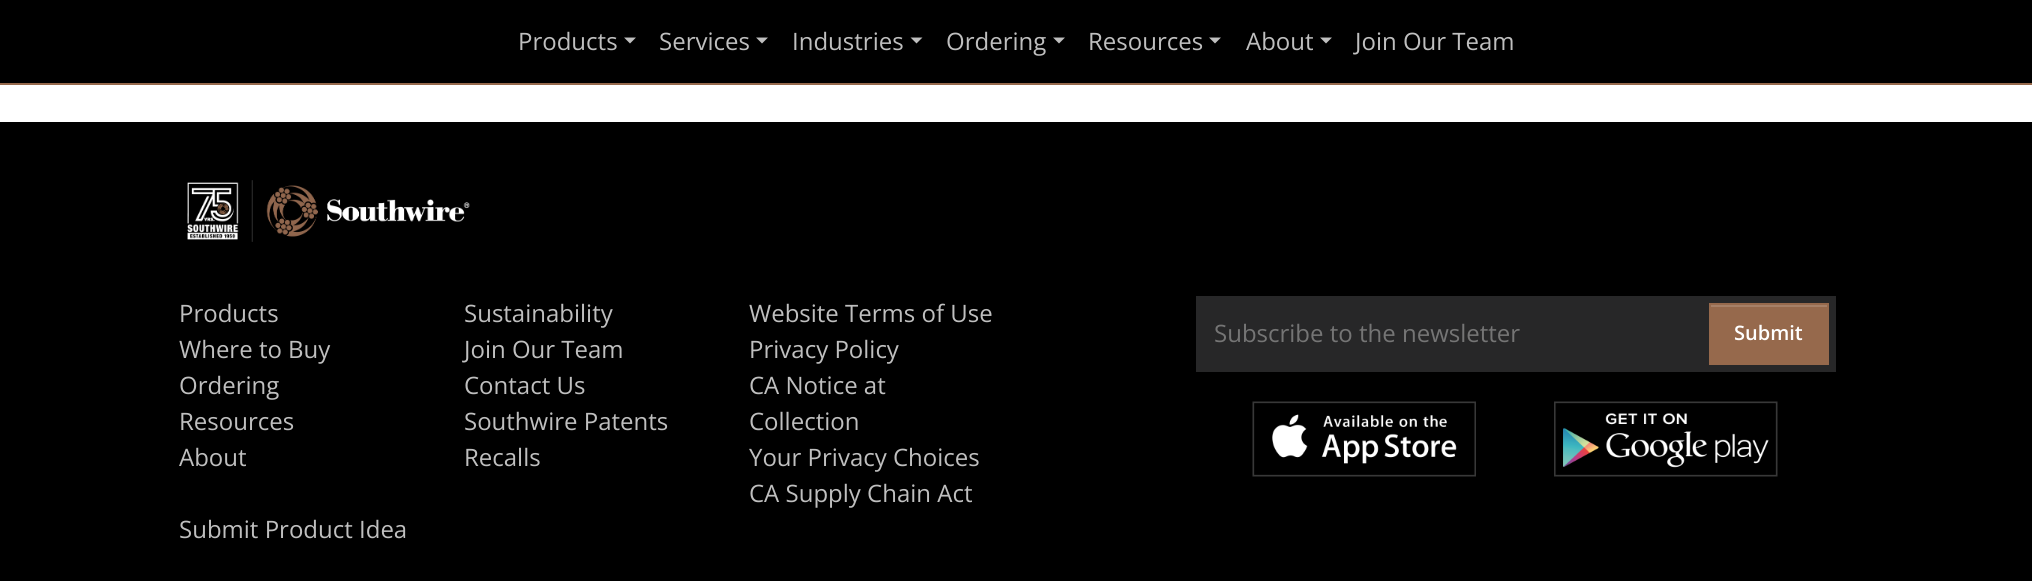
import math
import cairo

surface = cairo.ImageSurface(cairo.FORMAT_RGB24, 2032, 581)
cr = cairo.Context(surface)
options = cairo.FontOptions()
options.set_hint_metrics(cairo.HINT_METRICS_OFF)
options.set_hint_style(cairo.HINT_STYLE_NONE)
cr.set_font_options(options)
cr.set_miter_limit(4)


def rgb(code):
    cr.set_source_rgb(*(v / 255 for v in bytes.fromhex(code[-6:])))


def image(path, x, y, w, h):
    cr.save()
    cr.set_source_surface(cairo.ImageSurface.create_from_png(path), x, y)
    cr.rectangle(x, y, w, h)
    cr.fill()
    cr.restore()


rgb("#ffffff")
cr.paint()
rgb("#000000")
cr.rectangle(0, 0, 2032, 83)
cr.fill()
rgb("#96694c")
cr.rectangle(0, 83, 2032, 2)
cr.fill()
rgb("#bfbfbf")
cr.new_path()
cr.move_to(624, 37.5)
cr.line_to(636, 37.5)
cr.line_to(630, 43.5)
cr.close_path()
cr.fill()
cr.new_path()
cr.move_to(756, 37.5)
cr.line_to(768, 37.5)
cr.line_to(762, 43.5)
cr.close_path()
cr.fill()
cr.new_path()
cr.move_to(910.5, 37.5)
cr.line_to(922.5, 37.5)
cr.line_to(916.5, 43.5)
cr.close_path()
cr.fill()
cr.new_path()
cr.move_to(1053, 37.5)
cr.line_to(1065, 37.5)
cr.line_to(1059, 43.5)
cr.close_path()
cr.fill()
cr.new_path()
cr.move_to(1209, 37.5)
cr.line_to(1221, 37.5)
cr.line_to(1215, 43.5)
cr.close_path()
cr.fill()
cr.new_path()
cr.move_to(1320, 37.5)
cr.line_to(1332, 37.5)
cr.line_to(1326, 43.5)
cr.close_path()
cr.fill()
rgb("#000000")
cr.rectangle(0, 122, 2032, 459)
cr.fill()
image("img/1.png", 187, 180, 283, 62)
for x, y, w, h, color in [
    (1196, 296, 640, 76, "#272728"),
    (1711, 307, 116, 56, "#96694c"),
    (1710, 305, 117, 2, "#a68067"),
]:
    rgb(color)
    cr.rectangle(x, y, w, h)
    cr.fill()
cr.rectangle(1710, 304, 118, 60)
rgb("#96694c")
cr.stroke()
image("img/2.png", 1252, 401, 224, 76)
image("img/3.png", 1554, 401, 224, 76)
cr.select_font_face("Open Sans")
cr.set_font_size(24)
rgb("#bfbfbf")
for x, y, s in [
    (518, 50, "Products"),
    (659, 50, "Services"),
    (792, 50, "Industries"),
    (946, 50, "Ordering"),
    (1088, 50, "Resources"),
    (1246, 50, "About"),
    (1355, 50, "Join Our Team"),
    (179, 322, "Products"),
    (179, 358, "Where to Buy"),
    (179, 394, "Ordering"),
    (179, 430, "Resources"),
    (179, 466, "About"),
    (464, 322, "Sustainability"),
    (464, 358, "Join Our Team"),
    (464, 394, "Contact Us"),
    (464, 430, "Southwire Patents"),
    (464, 466, "Recalls"),
    (749, 322, "Website Terms of Use"),
    (749, 358, "Privacy Policy"),
    (749, 394, "CA Notice at"),
    (749, 430, "Collection"),
    (749, 466, "Your Privacy Choices"),
    (749, 502, "CA Supply Chain Act"),
    (179, 538, "Submit Product Idea"),
]:
    cr.move_to(x, y)
    cr.show_text(s)
rgb("#757575")
cr.move_to(1214, 342)
cr.show_text("Subscribe to the newsletter")
cr.select_font_face("Open Sans SemiBold")
cr.set_font_size(20)
rgb("#ffffff")
cr.move_to(1734, 340)
cr.show_text("Submit")
surface.write_to_png("page.png")
